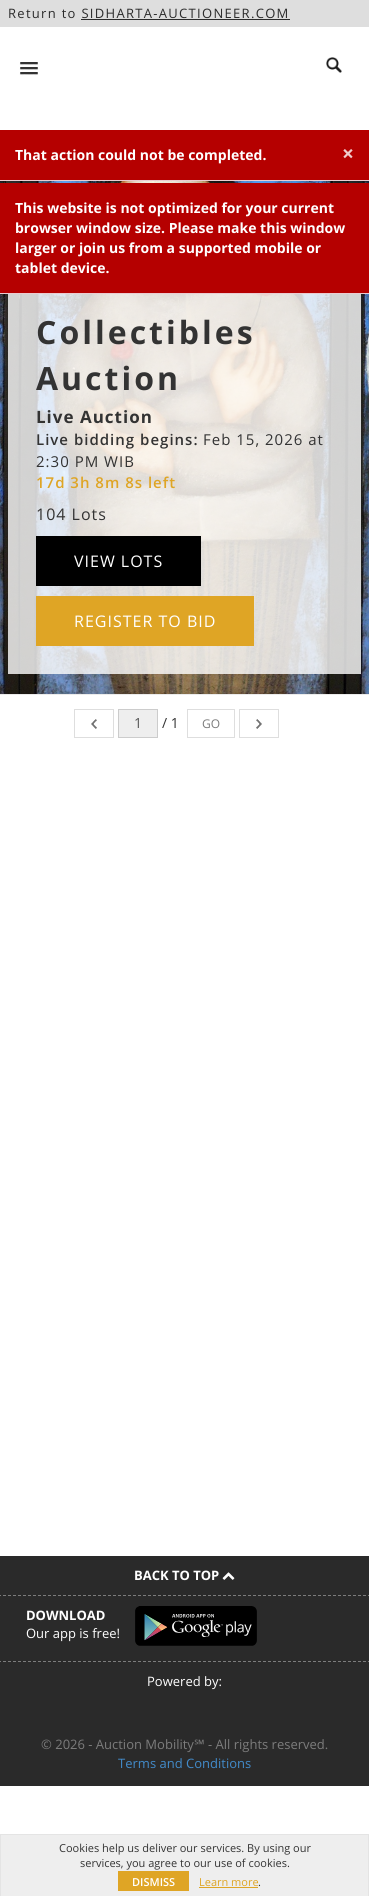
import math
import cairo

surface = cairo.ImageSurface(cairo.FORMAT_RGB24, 369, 1896)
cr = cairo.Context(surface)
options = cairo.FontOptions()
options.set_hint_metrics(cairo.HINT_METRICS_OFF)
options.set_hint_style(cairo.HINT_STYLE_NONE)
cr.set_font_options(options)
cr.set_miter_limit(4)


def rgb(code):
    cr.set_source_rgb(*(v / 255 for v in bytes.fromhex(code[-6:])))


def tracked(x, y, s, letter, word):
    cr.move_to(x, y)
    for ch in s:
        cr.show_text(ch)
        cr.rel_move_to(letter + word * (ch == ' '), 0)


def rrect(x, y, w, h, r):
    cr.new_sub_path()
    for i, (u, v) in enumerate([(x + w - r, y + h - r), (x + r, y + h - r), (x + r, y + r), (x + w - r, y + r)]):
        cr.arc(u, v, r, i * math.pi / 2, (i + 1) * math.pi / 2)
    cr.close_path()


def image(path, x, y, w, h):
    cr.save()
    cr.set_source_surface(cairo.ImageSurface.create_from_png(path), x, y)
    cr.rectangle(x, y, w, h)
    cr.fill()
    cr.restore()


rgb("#ffffff")
cr.paint()
rgb("#dedede")
cr.rectangle(0, 0, 369, 27)
cr.fill()
rgb("#2b2b2b")
cr.rectangle(81, 19, 209, 1)
cr.fill()
rgb("#bfbfbf")
cr.new_path()
cr.move_to(20, 63.5)
cr.curve_to(19, 65.5, 23.5, 65, 23.5, 65)
cr.line_to(34.5, 65)
cr.curve_to(34.5, 65, 39, 65.5, 38, 63.5)
cr.curve_to(37, 64.5, 30.5, 64, 29, 64)
cr.curve_to(27.5, 64, 21, 64.5, 20, 63.5)
cr.close_path()
cr.fill()
rgb("#333333")
rrect(20, 62, 18, 2, 1)
cr.fill()
rgb("#bfbfbf")
cr.new_path()
cr.move_to(20, 68.5)
cr.curve_to(19, 70.5, 23.5, 70, 23.5, 70)
cr.line_to(34.5, 70)
cr.curve_to(34.5, 70, 39, 70.5, 38, 68.5)
cr.curve_to(37, 69.5, 30.5, 69, 29, 69)
cr.curve_to(27.5, 69, 21, 69.5, 20, 68.5)
cr.close_path()
cr.fill()
rgb("#333333")
rrect(20, 67, 18, 2, 1)
cr.fill()
rgb("#bfbfbf")
cr.new_path()
cr.move_to(20, 73.5)
cr.curve_to(19, 75.5, 23.5, 75, 23.5, 75)
cr.line_to(34.5, 75)
cr.curve_to(34.5, 75, 39, 75.5, 38, 73.5)
cr.curve_to(37, 74.5, 30.5, 74, 29, 74)
cr.curve_to(27.5, 74, 21, 74.5, 20, 73.5)
cr.close_path()
cr.fill()
rgb("#333333")
rrect(20, 72, 18, 2, 1)
cr.fill()
image("img/1.png", 326, 57, 16, 16)
rgb("#b50000")
cr.rectangle(0, 130, 369, 50)
cr.fill()
rgb("#ebccd1")
cr.rectangle(0, 180, 369, 1)
cr.fill()
image("img/2.png", 0, 181, 369, 513)
cr.set_source_rgba(1, 1, 1, 0.8)
cr.rectangle(8, 294, 353, 380)
cr.fill()
rgb("#000000")
cr.rectangle(36, 536, 165, 50)
cr.fill()
rgb("#dfa525")
cr.rectangle(36, 596, 218, 50)
cr.fill()
rgb("#ebebeb")
cr.rectangle(0, 694, 369, 1)
cr.fill()
cr.rectangle(74.5, 709.5, 39, 28)
rgb("#dedede")
cr.set_line_width(1)
cr.stroke()
image("img/3.png", 91, 719, 6, 10)
rgb("#eeeeee")
cr.rectangle(118.5, 709.5, 39, 28)
cr.fill_preserve()
rgb("#cccccc")
cr.stroke()
cr.rectangle(187.5, 709.5, 47, 28)
rgb("#dedede")
cr.stroke()
cr.rectangle(239.5, 709.5, 39, 28)
cr.stroke()
image("img/4.png", 256, 719, 6, 10)
for x, y, w, h, color in [
    (0, 183, 369, 110, "#b50000"),
    (0, 293, 369, 1, "#ebccd1"),
    (0, 1556, 369, 230, "#2a2a2a"),
]:
    rgb(color)
    cr.rectangle(x, y, w, h)
    cr.fill()
cr.new_path()
cr.move_to(-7, 1595.5)
cr.line_to(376, 1595.5)
rgb("#7c7c7c")
cr.set_dash([3, 2])
cr.stroke()
image("img/5.png", 222, 1572, 13, 8)
cr.new_path()
cr.move_to(-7, 1661.5)
cr.line_to(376, 1661.5)
cr.stroke()
image("img/6.png", 135, 1606, 122, 40)
for x, y, w, h, color in [
    (1, 1835, 367, 61, "#eeeeee"),
    (0, 1834, 369, 1, "#e4e4e4"),
    (368, 1834, 1, 62, "#e4e4e4"),
    (0, 1834, 1, 62, "#e4e4e4"),
    (118, 1871, 71, 20, "#dfa525"),
    (199, 1887, 59, 1, "#dfa525"),
]:
    rgb(color)
    cr.rectangle(x, y, w, h)
    cr.fill()
cr.select_font_face("Open Sans")
cr.set_font_size(13)
rgb("#2b2b2b")
tracked(8, 18, "Return to SIDHARTA-AUCTIONEER.COM", 1.3, 0)
cr.select_font_face("Open Sans", cairo.FONT_SLANT_NORMAL, cairo.FONT_WEIGHT_BOLD)
cr.set_font_size(14)
rgb("#ffffff")
cr.move_to(15, 160)
cr.show_text("That action could not be completed.")
cr.set_font_size(21)
rgb("#f0cccc")
cr.move_to(342, 161)
cr.show_text("×")
cr.set_font_size(32)
rgb("#333333")
tracked(36, 344, "Collectibles", 3, 0)
tracked(36, 390, "Auction", 3, 0)
cr.set_font_size(17)
tracked(36, 423, "Live Auction", 1, 0)
cr.select_font_face("Open Sans SemiBold")
cr.set_font_size(15)
tracked(36, 445, "Live bidding begins:", 1, 0)
cr.select_font_face("Open Sans")
tracked(203, 445, "Feb 15, 2026 at", 1, 0)
tracked(36, 467, "2:30 PM WIB", 1, 0)
cr.select_font_face("Open Sans SemiBold")
rgb("#dfa525")
tracked(36, 488, "17d 3h 8m 8s left", 1, 0)
cr.select_font_face("Open Sans")
cr.set_font_size(16)
rgb("#333333")
tracked(36, 520, "104 Lots", 1, 0)
rgb("#ffffff")
tracked(74, 567, "VIEW LOTS", 1, 0)
tracked(74, 627, "REGISTER TO BID", 1, 0)
cr.set_font_size(14)
rgb("#555555")
cr.move_to(134, 728)
cr.show_text("1")
rgb("#333333")
cr.move_to(162, 728)
cr.show_text("/ 1")
cr.set_font_size(12)
rgb("#7c7c7c")
cr.move_to(202, 728)
cr.show_text("GO")
cr.select_font_face("Open Sans", cairo.FONT_SLANT_NORMAL, cairo.FONT_WEIGHT_BOLD)
cr.set_font_size(14)
rgb("#ffffff")
for x, y, s in [
    (15, 213, "This website is not optimized for your current"),
    (15, 233, "browser window size. Please make this window"),
    (15, 253, "larger or join us from a supported mobile or"),
    (15, 273, "tablet device."),
]:
    cr.move_to(x, y)
    cr.show_text(s)
cr.set_font_size(13)
cr.move_to(134, 1580)
cr.show_text("BACK TO TOP")
cr.move_to(26, 1620)
cr.show_text("DOWNLOAD")
cr.select_font_face("Open Sans")
cr.move_to(26, 1638)
cr.show_text("Our app is free!")
cr.move_to(147, 1686)
cr.show_text("Powered by:")
rgb("#7c7c7c")
cr.move_to(41, 1749)
cr.show_text("© 2026 - Auction Mobility")
cr.select_font_face("Noto Sans")
cr.move_to(194, 1749)
cr.show_text("℠")
cr.select_font_face("Open Sans")
cr.move_to(208, 1749)
cr.show_text("- All rights reserved.")
rgb("#428bca")
cr.move_to(118, 1768)
cr.show_text("Terms and Conditions")
cr.set_font_size(11)
rgb("#333333")
cr.move_to(59, 1852)
cr.show_text("Cookies help us deliver our services. By using our")
cr.move_to(80, 1867)
cr.show_text("services, you agree to our use of cookies.")
cr.select_font_face("Open Sans SemiBold")
rgb("#ffffff")
cr.move_to(132, 1886)
cr.show_text("DISMISS")
cr.select_font_face("Open Sans")
rgb("#dfa525")
cr.move_to(199, 1886)
cr.show_text("Learn more")
rgb("#333333")
cr.move_to(258, 1886)
cr.show_text(".")
surface.write_to_png("page.png")
